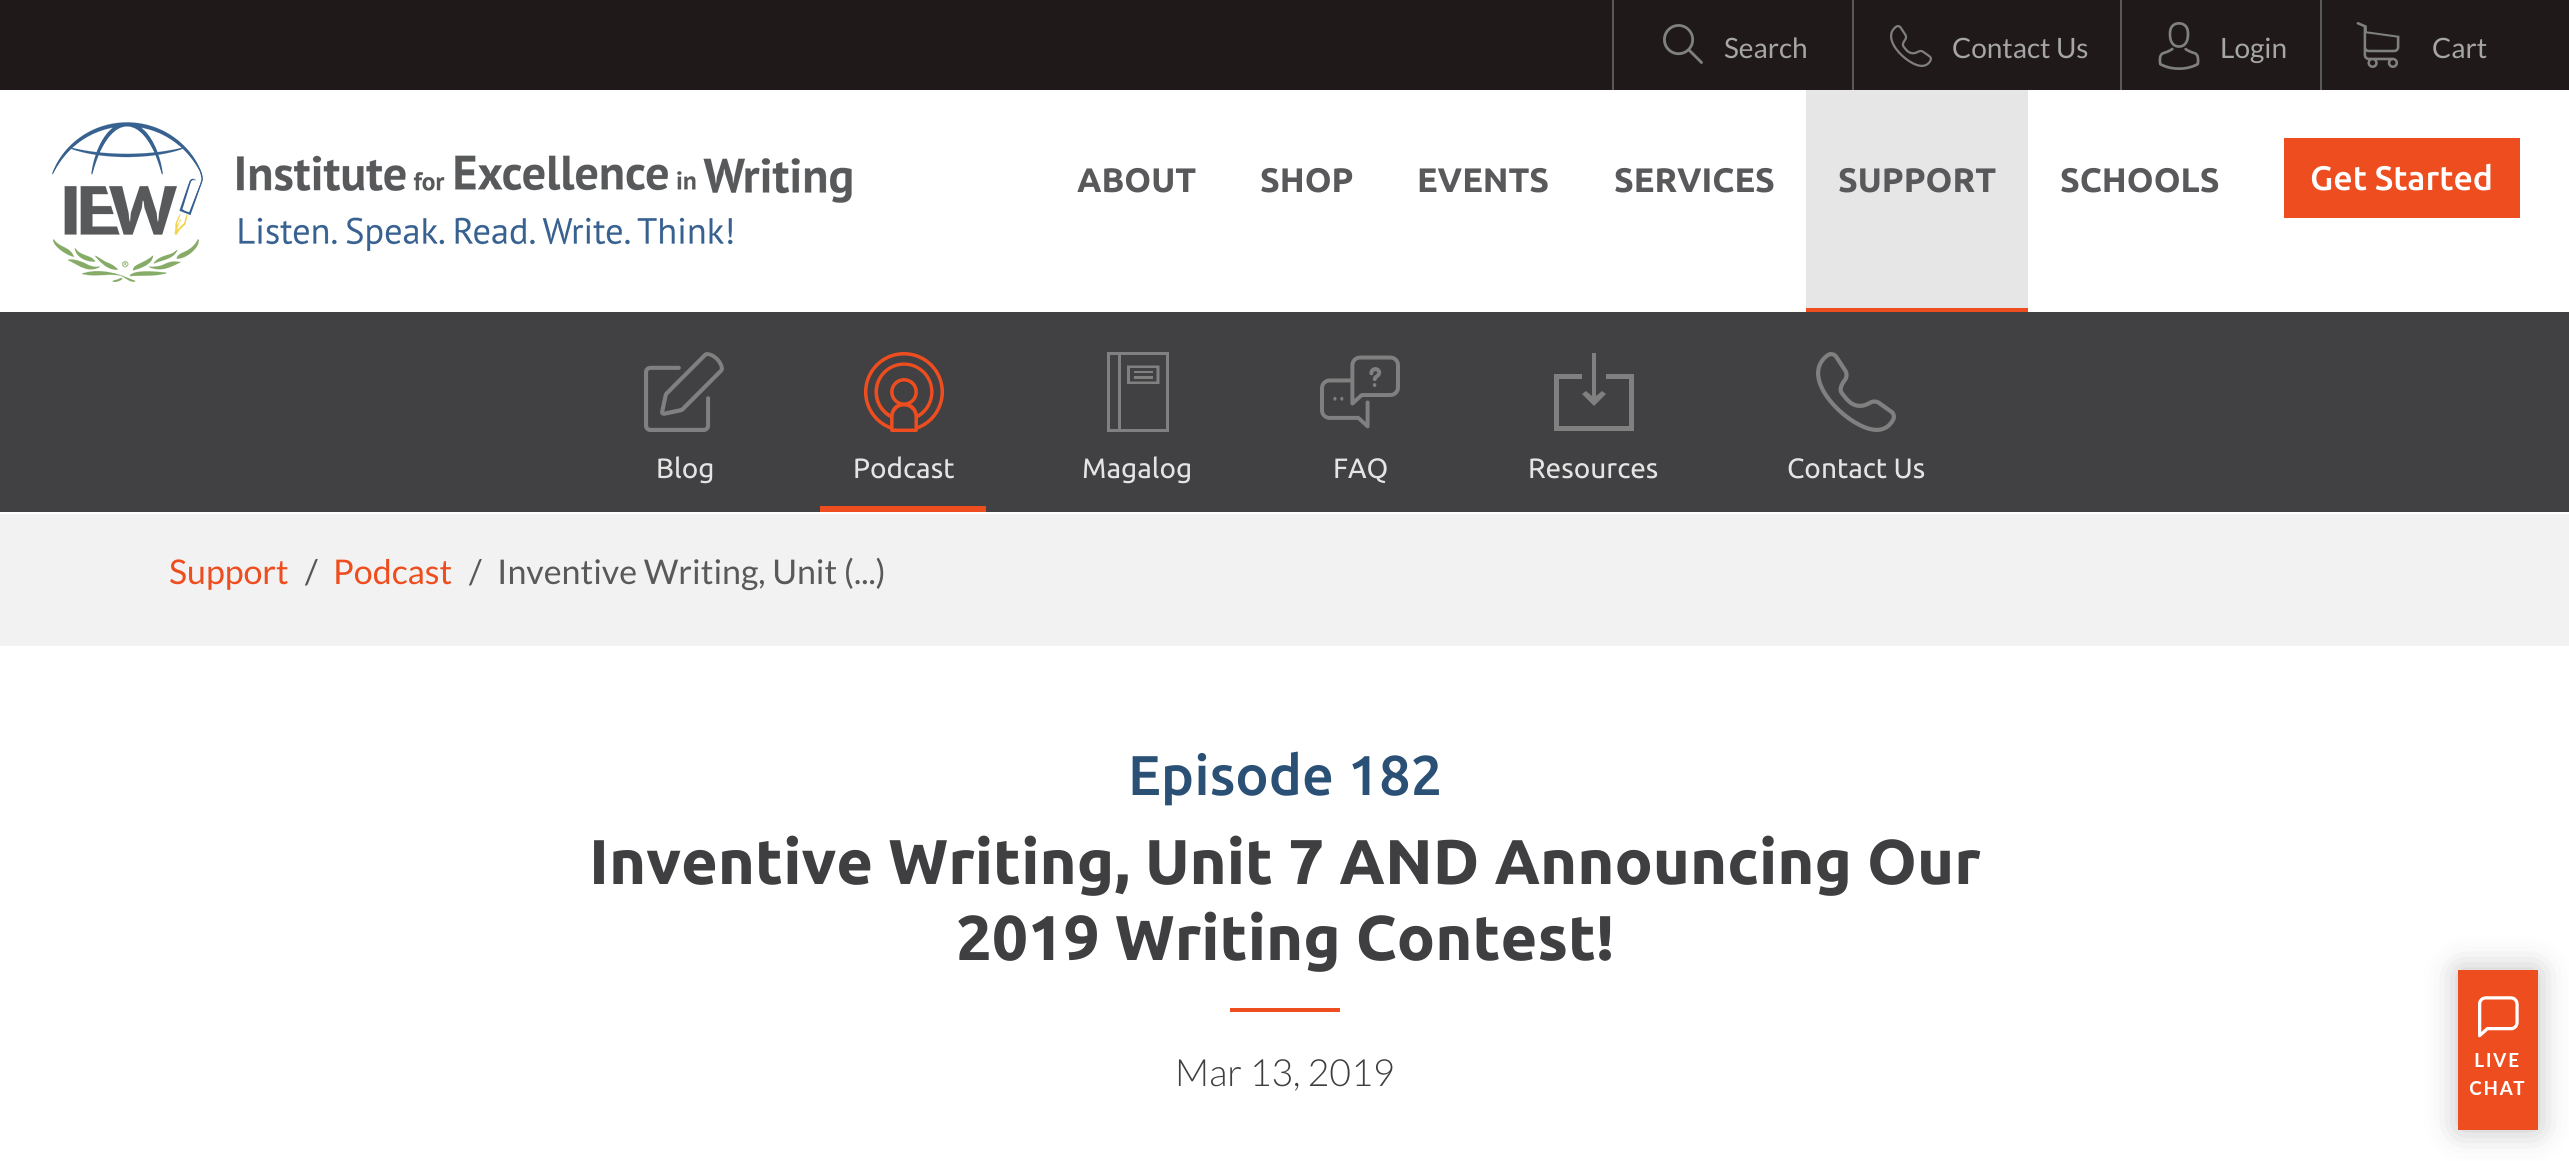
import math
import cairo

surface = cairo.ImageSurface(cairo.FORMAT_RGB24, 2569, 1161)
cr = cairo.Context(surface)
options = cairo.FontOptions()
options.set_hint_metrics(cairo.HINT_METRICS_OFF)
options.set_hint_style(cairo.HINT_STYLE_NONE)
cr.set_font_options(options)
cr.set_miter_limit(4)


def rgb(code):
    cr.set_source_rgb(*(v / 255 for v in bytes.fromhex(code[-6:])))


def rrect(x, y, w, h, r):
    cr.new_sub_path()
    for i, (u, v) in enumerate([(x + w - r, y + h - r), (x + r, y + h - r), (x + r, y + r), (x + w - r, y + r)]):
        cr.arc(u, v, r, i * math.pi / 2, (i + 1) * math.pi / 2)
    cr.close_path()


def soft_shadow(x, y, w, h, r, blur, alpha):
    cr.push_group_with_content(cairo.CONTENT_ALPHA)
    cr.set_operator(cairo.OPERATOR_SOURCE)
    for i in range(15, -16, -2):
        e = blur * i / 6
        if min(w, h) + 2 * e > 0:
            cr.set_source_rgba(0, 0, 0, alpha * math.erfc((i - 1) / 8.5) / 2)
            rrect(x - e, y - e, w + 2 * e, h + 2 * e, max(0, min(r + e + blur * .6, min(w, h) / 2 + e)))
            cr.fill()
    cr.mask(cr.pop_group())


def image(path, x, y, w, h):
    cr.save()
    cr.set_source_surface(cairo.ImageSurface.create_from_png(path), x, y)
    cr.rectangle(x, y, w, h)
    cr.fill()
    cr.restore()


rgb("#ffffff")
cr.paint()
rgb("#1f191a")
cr.rectangle(0, 0, 2569, 90)
cr.fill()
rgb("#59595b")
cr.rectangle(1612, 0, 2, 90)
cr.fill()
image("img/1.png", 1663, 24, 40, 40)
cr.rectangle(1852, 0, 2, 90)
cr.fill()
image("img/2.png", 1890, 25, 42, 42)
cr.rectangle(2120, 0, 2, 90)
cr.fill()
image("img/3.png", 2158, 22, 42, 48)
cr.rectangle(2320, 0, 2, 90)
cr.fill()
image("img/4.png", 2356, 22, 44, 46)
image("img/5.png", 52, 122, 800, 160)
for x, y, w, h, color in [
    (1806, 90, 222, 218, "#e6e6e6"),
    (1806, 308, 222, 4, "#ee4e1f"),
    (0, 312, 2569, 200, "#414042"),
]:
    rgb(color)
    cr.rectangle(x, y, w, h)
    cr.fill()
image("img/6.png", 644, 352, 80, 80)
rgb("#ee4e1f")
cr.rectangle(820, 506, 166, 6)
cr.fill()
image("img/7.png", 864, 352, 80, 80)
rgb("#808080")
cr.new_path()
cr.move_to(1121, 352)
cr.line_to(1107, 352)
cr.line_to(1107, 432)
cr.line_to(1169, 432)
cr.line_to(1169, 352)
cr.close_path()
cr.move_to(1110, 429)
cr.line_to(1110, 355)
cr.line_to(1118, 355)
cr.line_to(1118, 429)
cr.close_path()
cr.move_to(1166, 429)
cr.line_to(1121, 429)
cr.line_to(1121, 355)
cr.line_to(1166, 355)
cr.close_path()
cr.fill()
cr.new_path()
cr.move_to(1159.5, 384)
cr.line_to(1159.5, 365.5)
cr.line_to(1127, 365.5)
cr.line_to(1127, 384)
cr.close_path()
cr.move_to(1130, 368)
cr.line_to(1156.5, 368)
cr.line_to(1156.5, 381.5)
cr.line_to(1130, 381.5)
cr.close_path()
cr.fill()
cr.rectangle(1134, 371, 19, 2)
cr.fill()
cr.rectangle(1134, 376, 19, 3)
cr.fill()
image("img/8.png", 1320, 355, 80, 74)
cr.new_path()
cr.move_to(1606, 374)
cr.line_to(1606, 379)
cr.line_to(1629, 379)
cr.line_to(1629, 426)
cr.line_to(1559, 426)
cr.line_to(1559, 379)
cr.line_to(1582, 379)
cr.line_to(1582, 374)
cr.line_to(1554, 374)
cr.line_to(1554, 431)
cr.line_to(1634, 431)
cr.line_to(1634, 374)
cr.close_path()
cr.fill()
cr.new_path()
cr.move_to(1582, 394)
cr.line_to(1594, 406)
cr.line_to(1606, 394)
cr.line_to(1602, 391)
cr.line_to(1596, 396)
cr.line_to(1596, 353)
cr.line_to(1592, 353)
cr.line_to(1592, 396)
cr.line_to(1586, 391)
cr.close_path()
cr.fill()
image("img/9.png", 1816, 352, 80, 80)
for x, y, w, h, color in [
    (2284, 138, 236, 80, "#ee4e1f"),
    (0, 514, 2569, 132, "#f2f2f2"),
    (1230, 1008, 110, 4, "#ee4e1f"),
]:
    rgb(color)
    cr.rectangle(x, y, w, h)
    cr.fill()
rgb("#000000")
soft_shadow(2458, 970, 80, 160, 0, 16, 0.25)
rgb("#ee4e1f")
cr.rectangle(2458, 970, 80, 160)
cr.fill()
image("img/10.png", 2470, 996, 55, 99)
cr.select_font_face("Lato")
cr.set_font_size(28)
rgb("#a6a6a6")
for x, y, s in [
    (1724, 58, "Search"),
    (1952, 58, "Contact Us"),
    (2220, 58, "Login"),
    (2432, 58, "Cart"),
]:
    cr.move_to(x, y)
    cr.show_text(s)
cr.select_font_face("Ubuntu", cairo.FONT_SLANT_NORMAL, cairo.FONT_WEIGHT_BOLD)
cr.set_font_size(34)
rgb("#59595b")
cr.move_to(1838, 192)
cr.show_text("SUPPORT")
cr.select_font_face("Ubuntu")
cr.set_font_size(28)
rgb("#e4e4e4")
for x, y, s in [
    (656, 478, "Blog"),
    (853, 478, "Podcast"),
    (1082, 478, "Magalog"),
    (1333, 478, "FAQ"),
    (1528, 478, "Resources"),
    (1787, 478, "Contact Us"),
]:
    cr.move_to(x, y)
    cr.show_text(s)
cr.select_font_face("Ubuntu", cairo.FONT_SLANT_NORMAL, cairo.FONT_WEIGHT_BOLD)
cr.set_font_size(34)
rgb("#59595b")
for x, y, s in [
    (1077, 192, "ABOUT"),
    (1260, 192, "SHOP"),
    (1417, 192, "EVENTS"),
    (1614, 192, "SERVICES"),
    (2060, 192, "SCHOOLS"),
]:
    cr.move_to(x, y)
    cr.show_text(s)
cr.select_font_face("Ubuntu Medium")
rgb("#ffffff")
cr.move_to(2310, 190)
cr.show_text("Get Started")
cr.select_font_face("Lato")
rgb("#ee4e1f")
cr.move_to(169, 584)
cr.show_text("Support")
rgb("#59595b")
cr.move_to(305, 584)
cr.show_text("/")
rgb("#ee4e1f")
cr.move_to(333, 584)
cr.show_text("Podcast")
rgb("#59595b")
cr.move_to(469, 584)
cr.show_text("/")
cr.move_to(497, 584)
cr.show_text("Inventive Writing, Unit (...)")
cr.select_font_face("Ubuntu Medium")
cr.set_font_size(56)
rgb("#2b5076")
cr.move_to(1128, 795)
cr.show_text("Episode 182")
cr.select_font_face("Ubuntu", cairo.FONT_SLANT_NORMAL, cairo.FONT_WEIGHT_BOLD)
cr.set_font_size(63.2)
rgb("#3f3e40")
cr.move_to(589, 884)
cr.show_text("Inventive Writing, Unit 7 AND Announcing Our")
cr.move_to(956, 960)
cr.show_text("2019 Writing Contest!")
cr.select_font_face("Lato Light")
cr.set_font_size(37.5)
cr.move_to(1175, 1086)
cr.show_text("Mar 13, 2019")
surface.write_to_png("page.png")
